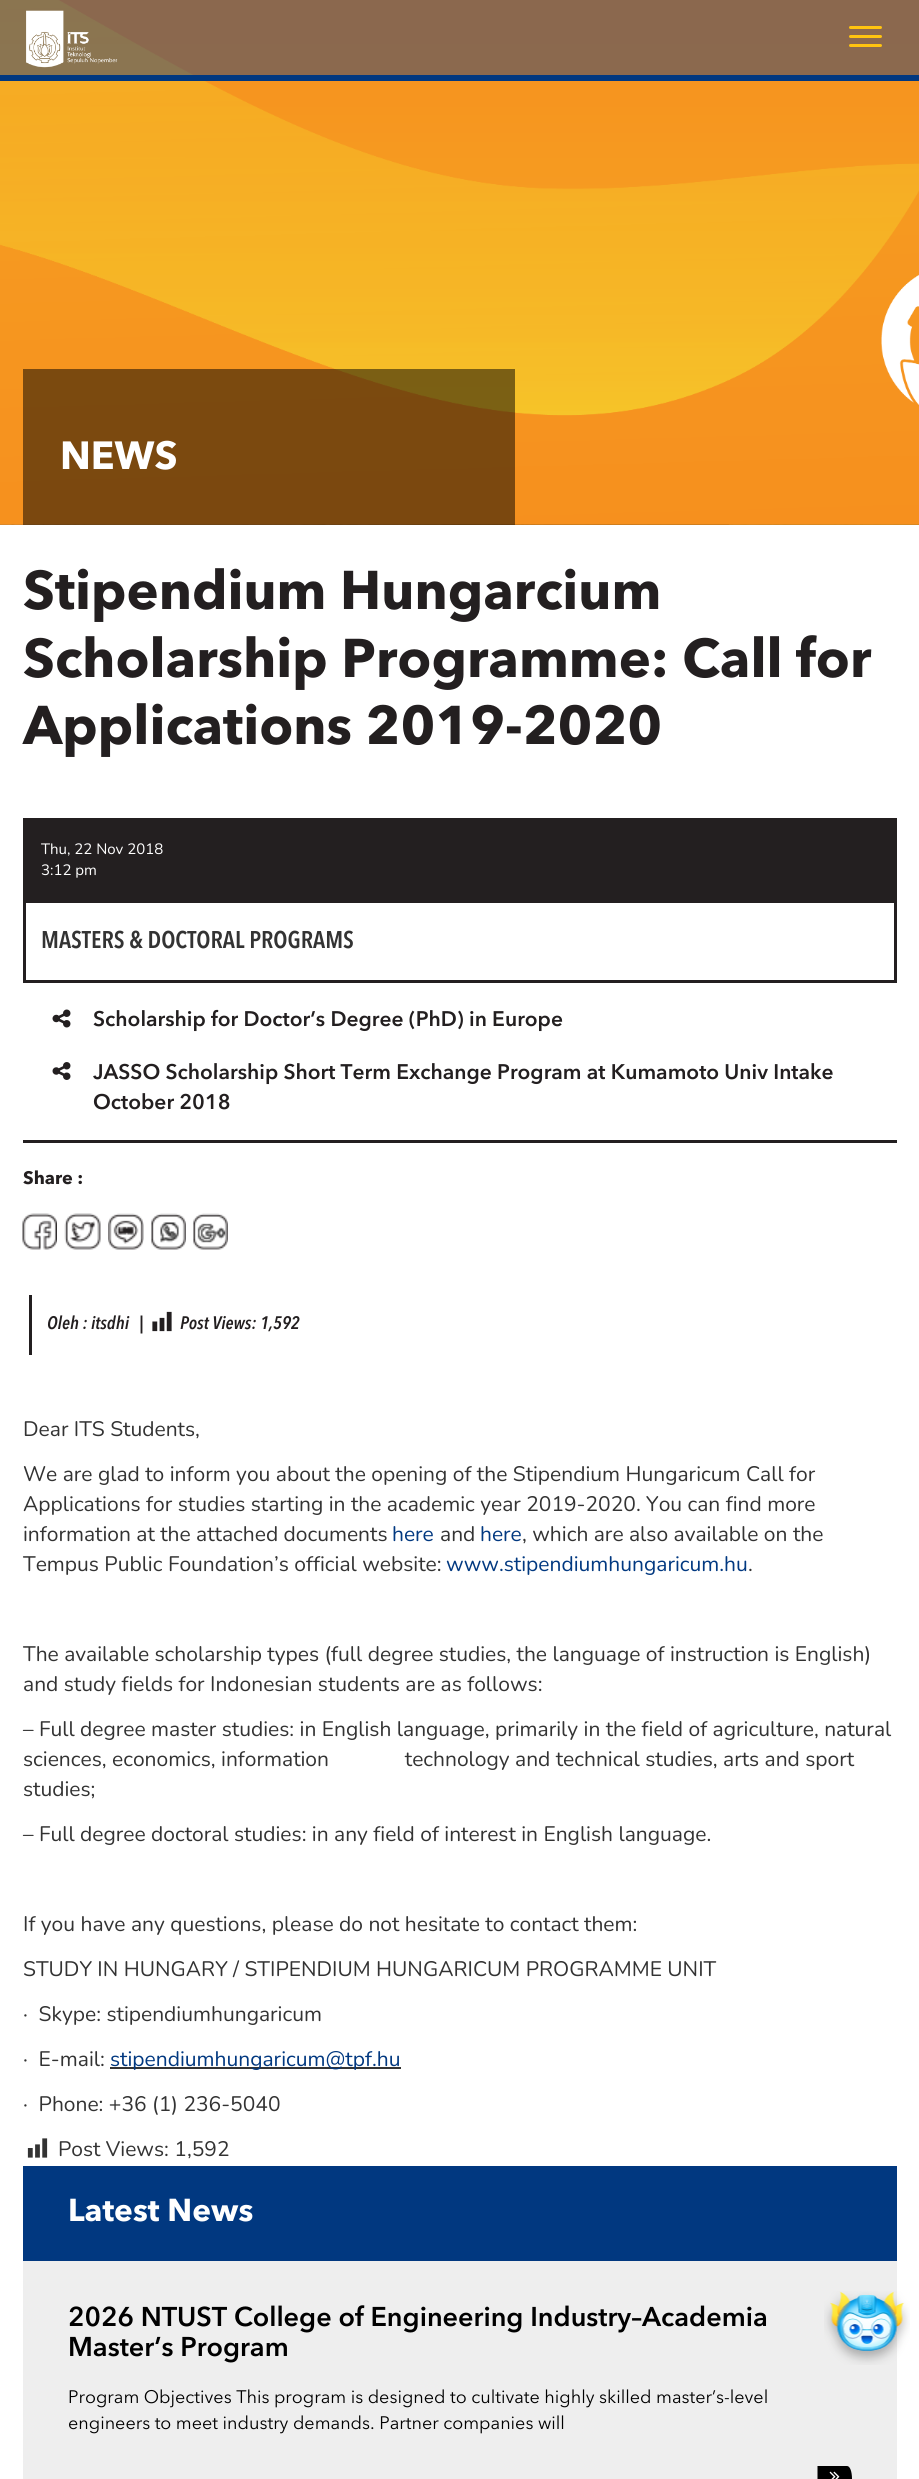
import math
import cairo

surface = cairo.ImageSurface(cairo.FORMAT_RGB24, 919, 2479)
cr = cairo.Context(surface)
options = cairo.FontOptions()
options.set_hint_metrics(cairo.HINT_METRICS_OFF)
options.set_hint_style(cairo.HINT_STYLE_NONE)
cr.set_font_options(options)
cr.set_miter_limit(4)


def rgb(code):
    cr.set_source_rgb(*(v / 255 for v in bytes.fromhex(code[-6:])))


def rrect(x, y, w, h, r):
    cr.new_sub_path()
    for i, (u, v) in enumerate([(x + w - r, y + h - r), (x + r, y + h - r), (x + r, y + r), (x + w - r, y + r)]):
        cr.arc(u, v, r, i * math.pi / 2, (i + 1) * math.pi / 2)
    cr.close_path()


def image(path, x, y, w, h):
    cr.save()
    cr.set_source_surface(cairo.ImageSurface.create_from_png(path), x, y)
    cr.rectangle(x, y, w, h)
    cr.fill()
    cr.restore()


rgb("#ffffff")
cr.paint()
image("img/2.png", 0, 0, 919, 525)
cr.set_source_rgba(0.125, 0.255, 0.498, 0.5)
cr.rectangle(0, 0, 919, 75)
cr.fill()
rgb("#013880")
cr.rectangle(0, 75, 919, 6)
cr.fill()
image("img/1.png", 26, 10, 92, 58)
rgb("#ffc410")
rrect(849, 26, 33, 3, 1.5)
cr.fill()
rrect(849, 35, 33, 3, 1.5)
cr.fill()
rrect(849, 44, 33, 3, 1.5)
cr.fill()
cr.set_source_rgba(0, 0, 0, 0.5)
cr.rectangle(23, 369, 492, 156)
cr.fill()
cr.rectangle(24.5, 819.5, 871, 162)
rgb("#231f20")
cr.set_line_width(3)
cr.stroke()
cr.rectangle(26, 821, 868, 82)
cr.fill()
cr.rectangle(23, 1140, 874, 3)
cr.fill()
image("img/3.png", 52, 1009, 19, 19)
image("img/4.png", 52, 1062, 19, 18)
image("img/5.png", 22, 1213, 35, 37)
image("img/6.png", 64, 1213, 37, 37)
image("img/7.png", 108, 1213, 36, 37)
image("img/8.png", 151, 1213, 35, 37)
image("img/9.png", 193, 1213, 35, 37)
cr.rectangle(29, 1295, 3, 60)
cr.fill()
image("img/10.png", 152, 1311, 20, 21)
rgb("#333333")
cr.rectangle(110, 2067, 291, 2)
cr.fill()
image("img/11.png", 27, 2138, 21, 20)
rgb("#eeeeee")
cr.rectangle(23, 2261, 874, 218)
cr.fill()
rgb("#013880")
cr.rectangle(23, 2166, 874, 95)
cr.fill()
rgb("#000000")
cr.new_path()
cr.move_to(817.5, 2466)
cr.line_to(847, 2466)
cr.curve_to(850, 2466, 852, 2471.5, 852, 2479)
cr.curve_to(852, 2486, 850, 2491.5, 847, 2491.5)
cr.line_to(817.5, 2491.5)
cr.close_path()
cr.fill()
image("img/12.png", 829, 2471, 11, 8)
image("img/13.png", 824, 2291, 86, 74)
cr.select_font_face("Avenir Next", cairo.FONT_SLANT_NORMAL, cairo.FONT_WEIGHT_BOLD)
cr.set_font_size(39)
rgb("#ffffff")
cr.move_to(60, 469)
cr.show_text("NEWS")
cr.set_font_size(54)
rgb("#231f20")
for x, y, s in [
    (23, 609, "Stipendium Hungarcium"),
    (23, 677, "Scholarship Programme: Call for"),
    (23, 744, "Applications 2019-2020"),
]:
    cr.move_to(x, y)
    cr.show_text(s)
cr.select_font_face("Nunito ExtraLight")
cr.set_font_size(15)
rgb("#ffffff")
cr.move_to(41, 854)
cr.show_text("Thu, 22 Nov 2018")
cr.move_to(41, 875)
cr.show_text("3:12 pm")
cr.select_font_face("Avenir Next SemiBold")
cr.set_font_size(24)
rgb("#333333")
cr.move_to(41, 948)
cr.show_text("MASTERS & DOCTORAL PROGRAMS")
cr.select_font_face("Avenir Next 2 SemiBold")
cr.set_font_size(21)
rgb("#231f20")
for x, y, s in [
    (93, 1026, "Scholarship for Doctor’s Degree (PhD) in Europe"),
    (93, 1079, "JASSO Scholarship Short Term Exchange Program at Kumamoto Univ Intake"),
    (93, 1109, "October 2018"),
]:
    cr.move_to(x, y)
    cr.show_text(s)
cr.select_font_face("Avenir Next", cairo.FONT_SLANT_NORMAL, cairo.FONT_WEIGHT_BOLD)
cr.set_font_size(18)
cr.move_to(23, 1184)
cr.show_text("Share :")
cr.select_font_face("Avenir Next SemiBold", cairo.FONT_SLANT_ITALIC)
cr.move_to(47, 1329)
cr.show_text("Oleh : itsdhi   |")
cr.move_to(180, 1329)
cr.show_text("Post Views: 1,592")
cr.select_font_face("Nunito ExtraLight")
cr.set_font_size(21)
rgb("#333333")
for x, y, s in [
    (23, 1436, "Dear ITS Students,"),
    (23, 1481, "We are glad to inform you about the opening of the Stipendium Hungaricum Call for"),
    (23, 1511, "Applications for studies starting in the academic year 2019-2020. You can find more"),
    (23, 1541, "information at the attached documents"),
]:
    cr.move_to(x, y)
    cr.show_text(s)
rgb("#013880")
cr.move_to(392, 1541)
cr.show_text("here")
rgb("#333333")
cr.move_to(440, 1541)
cr.show_text("and")
rgb("#013880")
cr.move_to(480, 1541)
cr.show_text("here")
rgb("#333333")
cr.move_to(522, 1541)
cr.show_text(", which are also available on the")
cr.move_to(23, 1571)
cr.show_text("Tempus Public Foundation’s official website:")
rgb("#013880")
cr.move_to(446, 1571)
cr.show_text("www.stipendiumhungaricum.hu")
rgb("#333333")
for x, y, s in [
    (748, 1571, "."),
    (23, 1661, "The available scholarship types (full degree studies, the language of instruction is English)"),
    (23, 1691, "and study fields for Indonesian students are as follows:"),
    (23, 1736, "– Full degree master studies: in English language, primarily in the field of agriculture, natural"),
    (23, 1766, "sciences, economics, information              technology and technical studies, arts and sport"),
    (23, 1796, "studies;"),
    (23, 1841, "– Full degree doctoral studies: in any field of interest in English language."),
    (23, 1931, "If you have any questions, please do not hesitate to contact them:"),
    (23, 1976, "STUDY IN HUNGARY / STIPENDIUM HUNGARICUM PROGRAMME UNIT"),
    (23, 2021, "·  Skype: stipendiumhungaricum"),
    (23, 2066, "·  E-mail:"),
]:
    cr.move_to(x, y)
    cr.show_text(s)
rgb("#013880")
cr.move_to(110, 2066)
cr.show_text("stipendiumhungaricum@tpf.hu")
rgb("#333333")
cr.move_to(23, 2111)
cr.show_text("·  Phone: +36 (1) 236-5040")
cr.move_to(58, 2156)
cr.show_text("Post Views: 1,592")
cr.select_font_face("Avenir Next", cairo.FONT_SLANT_NORMAL, cairo.FONT_WEIGHT_BOLD)
cr.set_font_size(31.5)
rgb("#ffffff")
cr.move_to(68, 2221)
cr.show_text("Latest News")
cr.select_font_face("Avenir Next 2 SemiBold")
cr.set_font_size(27)
rgb("#000000")
cr.move_to(68, 2326)
cr.show_text("2026 NTUST College of Engineering Industry–Academia")
cr.move_to(68, 2356)
cr.show_text("Master’s Program")
cr.select_font_face("Avenir Next")
cr.set_font_size(18)
cr.move_to(68, 2403)
cr.show_text("Program Objectives This program is designed to cultivate highly skilled master’s-level")
cr.move_to(68, 2429)
cr.show_text("engineers to meet industry demands. Partner companies will")
surface.write_to_png("page.png")
